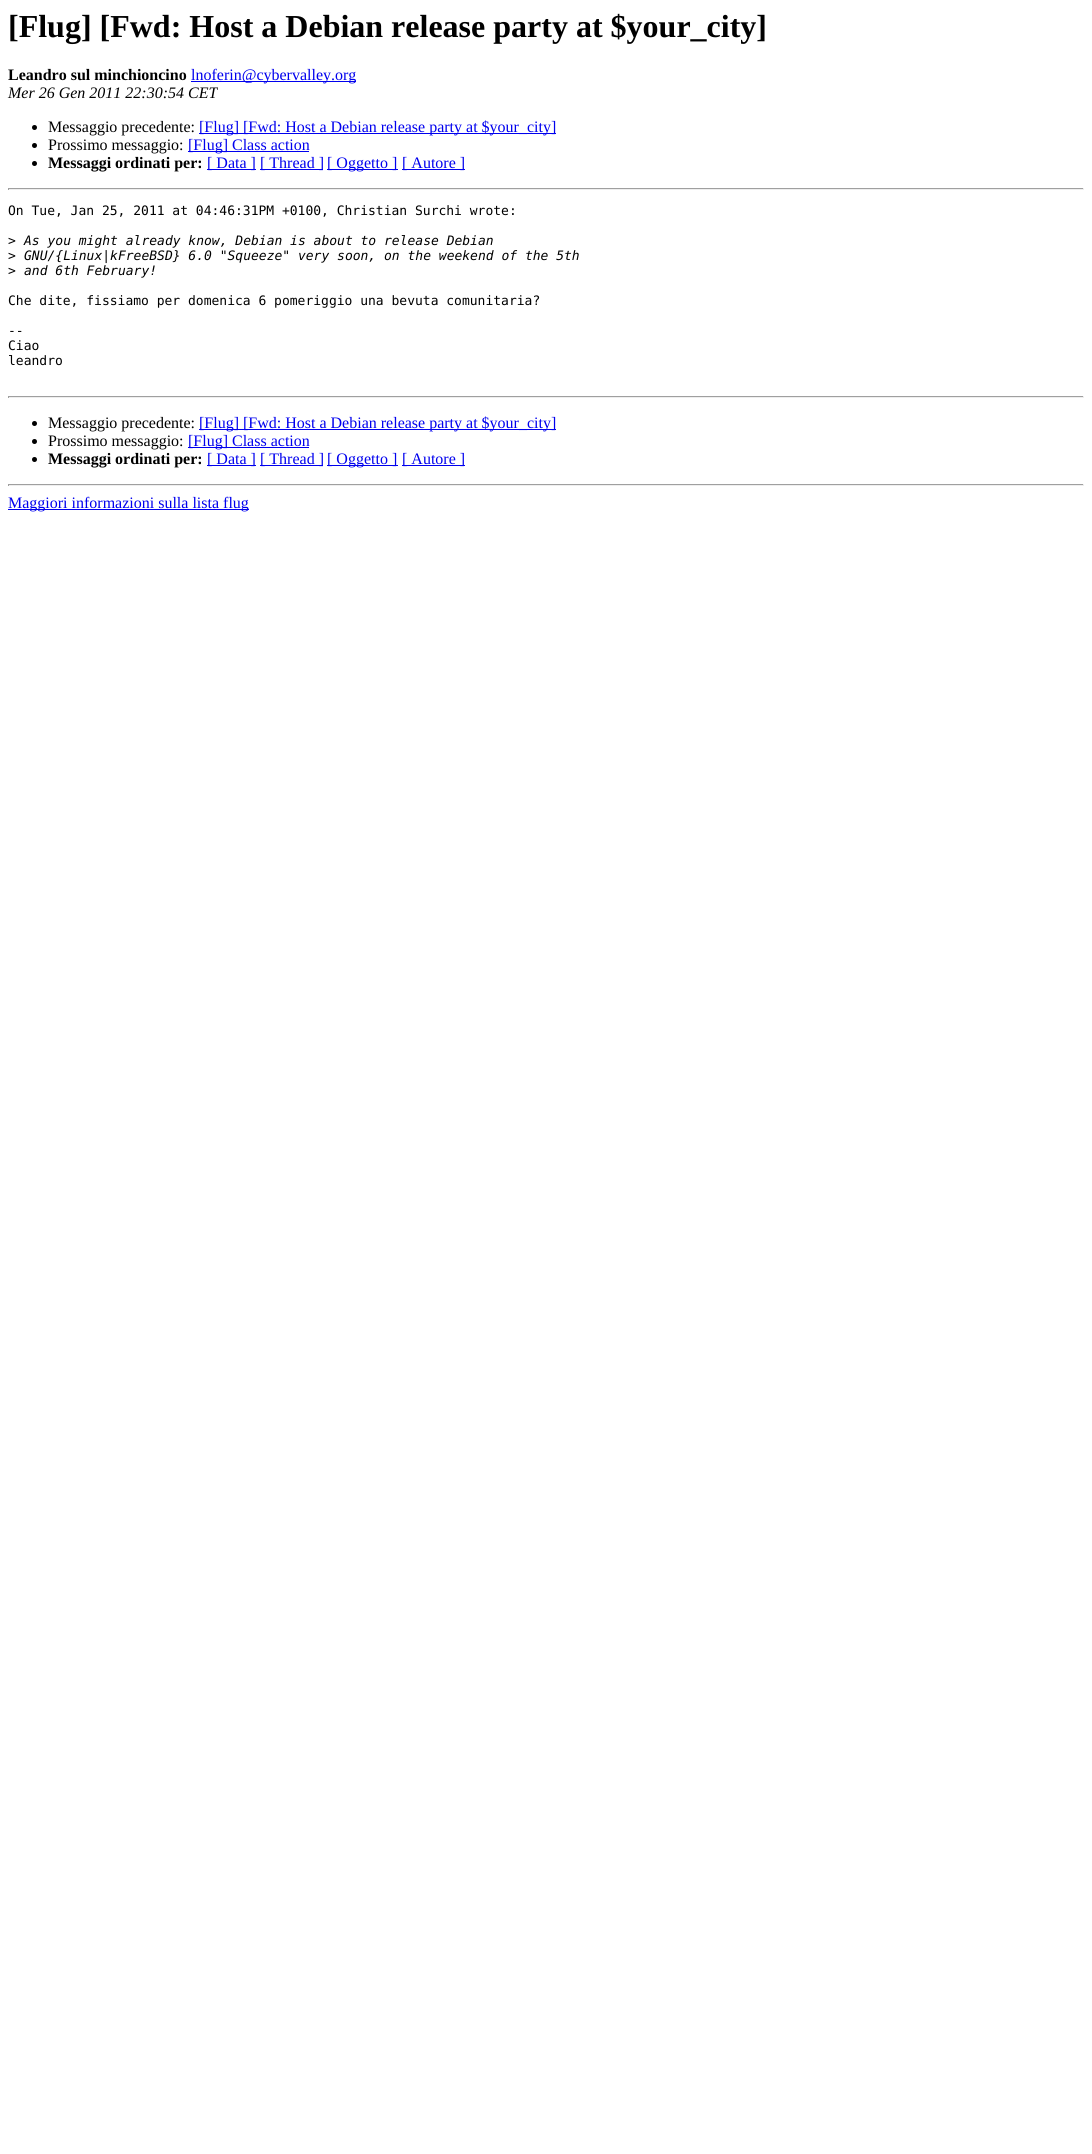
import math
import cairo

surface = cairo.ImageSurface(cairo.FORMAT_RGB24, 1092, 2154)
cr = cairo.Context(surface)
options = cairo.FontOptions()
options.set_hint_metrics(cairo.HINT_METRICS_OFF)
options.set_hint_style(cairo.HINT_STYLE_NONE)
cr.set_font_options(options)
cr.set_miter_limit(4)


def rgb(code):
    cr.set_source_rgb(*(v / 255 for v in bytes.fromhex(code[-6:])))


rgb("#ffffff")
cr.paint()
rgb("#0000ee")
cr.rectangle(191, 81, 165, 1)
cr.fill()
rgb("#000000")
cr.arc(34.5, 127.5, 2.5, 0, 2 * math.pi)
cr.fill()
rgb("#0000ee")
cr.rectangle(199, 133, 357, 1)
cr.fill()
rgb("#000000")
cr.arc(34.5, 145.5, 2.5, 0, 2 * math.pi)
cr.fill()
rgb("#0000ee")
cr.rectangle(188, 151, 121, 1)
cr.fill()
rgb("#000000")
cr.arc(34.5, 163.5, 2.5, 0, 2 * math.pi)
cr.fill()
for x, y, w, h, color in [
    (207, 169, 49, 1, "#0000ee"),
    (260, 169, 63, 1, "#0000ee"),
    (327, 169, 71, 1, "#0000ee"),
    (402, 169, 63, 1, "#0000ee"),
    (8, 188, 1076, 1, "#9f9f9f"),
    (1083, 188, 1, 2, "#eeeeee"),
    (8, 189, 1076, 1, "#eeeeee"),
    (8, 188, 1, 2, "#9f9f9f"),
    (8, 396, 1076, 1, "#9f9f9f"),
    (1083, 396, 1, 2, "#eeeeee"),
    (8, 397, 1076, 1, "#eeeeee"),
    (8, 396, 1, 2, "#9f9f9f"),
]:
    rgb(color)
    cr.rectangle(x, y, w, h)
    cr.fill()
rgb("#000000")
cr.arc(34.5, 423.5, 2.5, 0, 2 * math.pi)
cr.fill()
rgb("#0000ee")
cr.rectangle(199, 429, 357, 1)
cr.fill()
rgb("#000000")
cr.arc(34.5, 441.5, 2.5, 0, 2 * math.pi)
cr.fill()
rgb("#0000ee")
cr.rectangle(188, 447, 121, 1)
cr.fill()
rgb("#000000")
cr.arc(34.5, 459.5, 2.5, 0, 2 * math.pi)
cr.fill()
for x, y, w, h, color in [
    (207, 465, 49, 1, "#0000ee"),
    (260, 465, 63, 1, "#0000ee"),
    (327, 465, 71, 1, "#0000ee"),
    (402, 465, 63, 1, "#0000ee"),
    (8, 484, 1076, 1, "#9f9f9f"),
    (1083, 484, 1, 2, "#eeeeee"),
    (8, 485, 1076, 1, "#eeeeee"),
    (8, 484, 1, 2, "#9f9f9f"),
    (8, 509, 241, 1, "#0000ee"),
]:
    rgb(color)
    cr.rectangle(x, y, w, h)
    cr.fill()
cr.select_font_face("Liberation Serif", cairo.FONT_SLANT_NORMAL, cairo.FONT_WEIGHT_BOLD)
cr.set_font_size(32)
rgb("#000000")
cr.move_to(8, 37)
cr.show_text("[Flug] [Fwd: Host a Debian release party at $your_city]")
cr.set_font_size(16)
cr.move_to(8, 80)
cr.show_text("Leandro sul minchioncino")
cr.select_font_face("Liberation Serif")
rgb("#0000ee")
cr.move_to(191, 80)
cr.show_text("lnoferin@cybervalley.org")
cr.select_font_face("Liberation Serif", cairo.FONT_SLANT_ITALIC)
rgb("#000000")
cr.move_to(8, 98)
cr.show_text("Mer 26 Gen 2011 22:30:54 CET")
cr.select_font_face("Liberation Serif")
cr.move_to(48, 132)
cr.show_text("Messaggio precedente:")
rgb("#0000ee")
cr.move_to(199, 132)
cr.show_text("[Flug] [Fwd: Host a Debian release party at $your_city]")
rgb("#000000")
cr.move_to(48, 150)
cr.show_text("Prossimo messaggio:")
rgb("#0000ee")
cr.move_to(188, 150)
cr.show_text("[Flug] Class action")
cr.select_font_face("Liberation Serif", cairo.FONT_SLANT_NORMAL, cairo.FONT_WEIGHT_BOLD)
rgb("#000000")
cr.move_to(48, 168)
cr.show_text("Messaggi ordinati per:")
cr.select_font_face("Liberation Serif")
rgb("#0000ee")
for x, y, s in [
    (207, 168, "[ Data ]"),
    (260, 168, "[ Thread ]"),
    (327, 168, "[ Oggetto ]"),
    (402, 168, "[ Autore ]"),
]:
    cr.move_to(x, y)
    cr.show_text(s)
cr.select_font_face("DejaVu Sans Mono")
cr.set_font_size(13)
rgb("#000000")
cr.move_to(8, 215)
cr.show_text("On Tue, Jan 25, 2011 at 04:46:31PM +0100, Christian Surchi wrote:")
cr.move_to(8, 245)
cr.show_text(">")
cr.select_font_face("DejaVu Sans Mono", cairo.FONT_SLANT_ITALIC)
cr.move_to(24, 245)
cr.show_text("As you might already know, Debian is about to release Debian")
cr.select_font_face("DejaVu Sans Mono")
cr.move_to(8, 260)
cr.show_text(">")
cr.select_font_face("DejaVu Sans Mono", cairo.FONT_SLANT_ITALIC)
cr.move_to(24, 260)
cr.show_text("GNU/{Linux|kFreeBSD} 6.0 \"Squeeze\" very soon, on the weekend of the 5th")
cr.select_font_face("DejaVu Sans Mono")
cr.move_to(8, 275)
cr.show_text(">")
cr.select_font_face("DejaVu Sans Mono", cairo.FONT_SLANT_ITALIC)
cr.move_to(24, 275)
cr.show_text("and 6th February!")
cr.select_font_face("DejaVu Sans Mono")
for x, y, s in [
    (8, 305, "Che dite, fissiamo per domenica 6 pomeriggio una bevuta comunitaria?"),
    (8, 335, "--"),
    (8, 350, "Ciao"),
    (8, 365, "leandro"),
]:
    cr.move_to(x, y)
    cr.show_text(s)
cr.select_font_face("Liberation Serif")
cr.set_font_size(16)
cr.move_to(48, 428)
cr.show_text("Messaggio precedente:")
rgb("#0000ee")
cr.move_to(199, 428)
cr.show_text("[Flug] [Fwd: Host a Debian release party at $your_city]")
rgb("#000000")
cr.move_to(48, 446)
cr.show_text("Prossimo messaggio:")
rgb("#0000ee")
cr.move_to(188, 446)
cr.show_text("[Flug] Class action")
cr.select_font_face("Liberation Serif", cairo.FONT_SLANT_NORMAL, cairo.FONT_WEIGHT_BOLD)
rgb("#000000")
cr.move_to(48, 464)
cr.show_text("Messaggi ordinati per:")
cr.select_font_face("Liberation Serif")
rgb("#0000ee")
for x, y, s in [
    (207, 464, "[ Data ]"),
    (260, 464, "[ Thread ]"),
    (327, 464, "[ Oggetto ]"),
    (402, 464, "[ Autore ]"),
    (8, 508, "Maggiori informazioni sulla lista flug"),
]:
    cr.move_to(x, y)
    cr.show_text(s)
surface.write_to_png("page.png")
